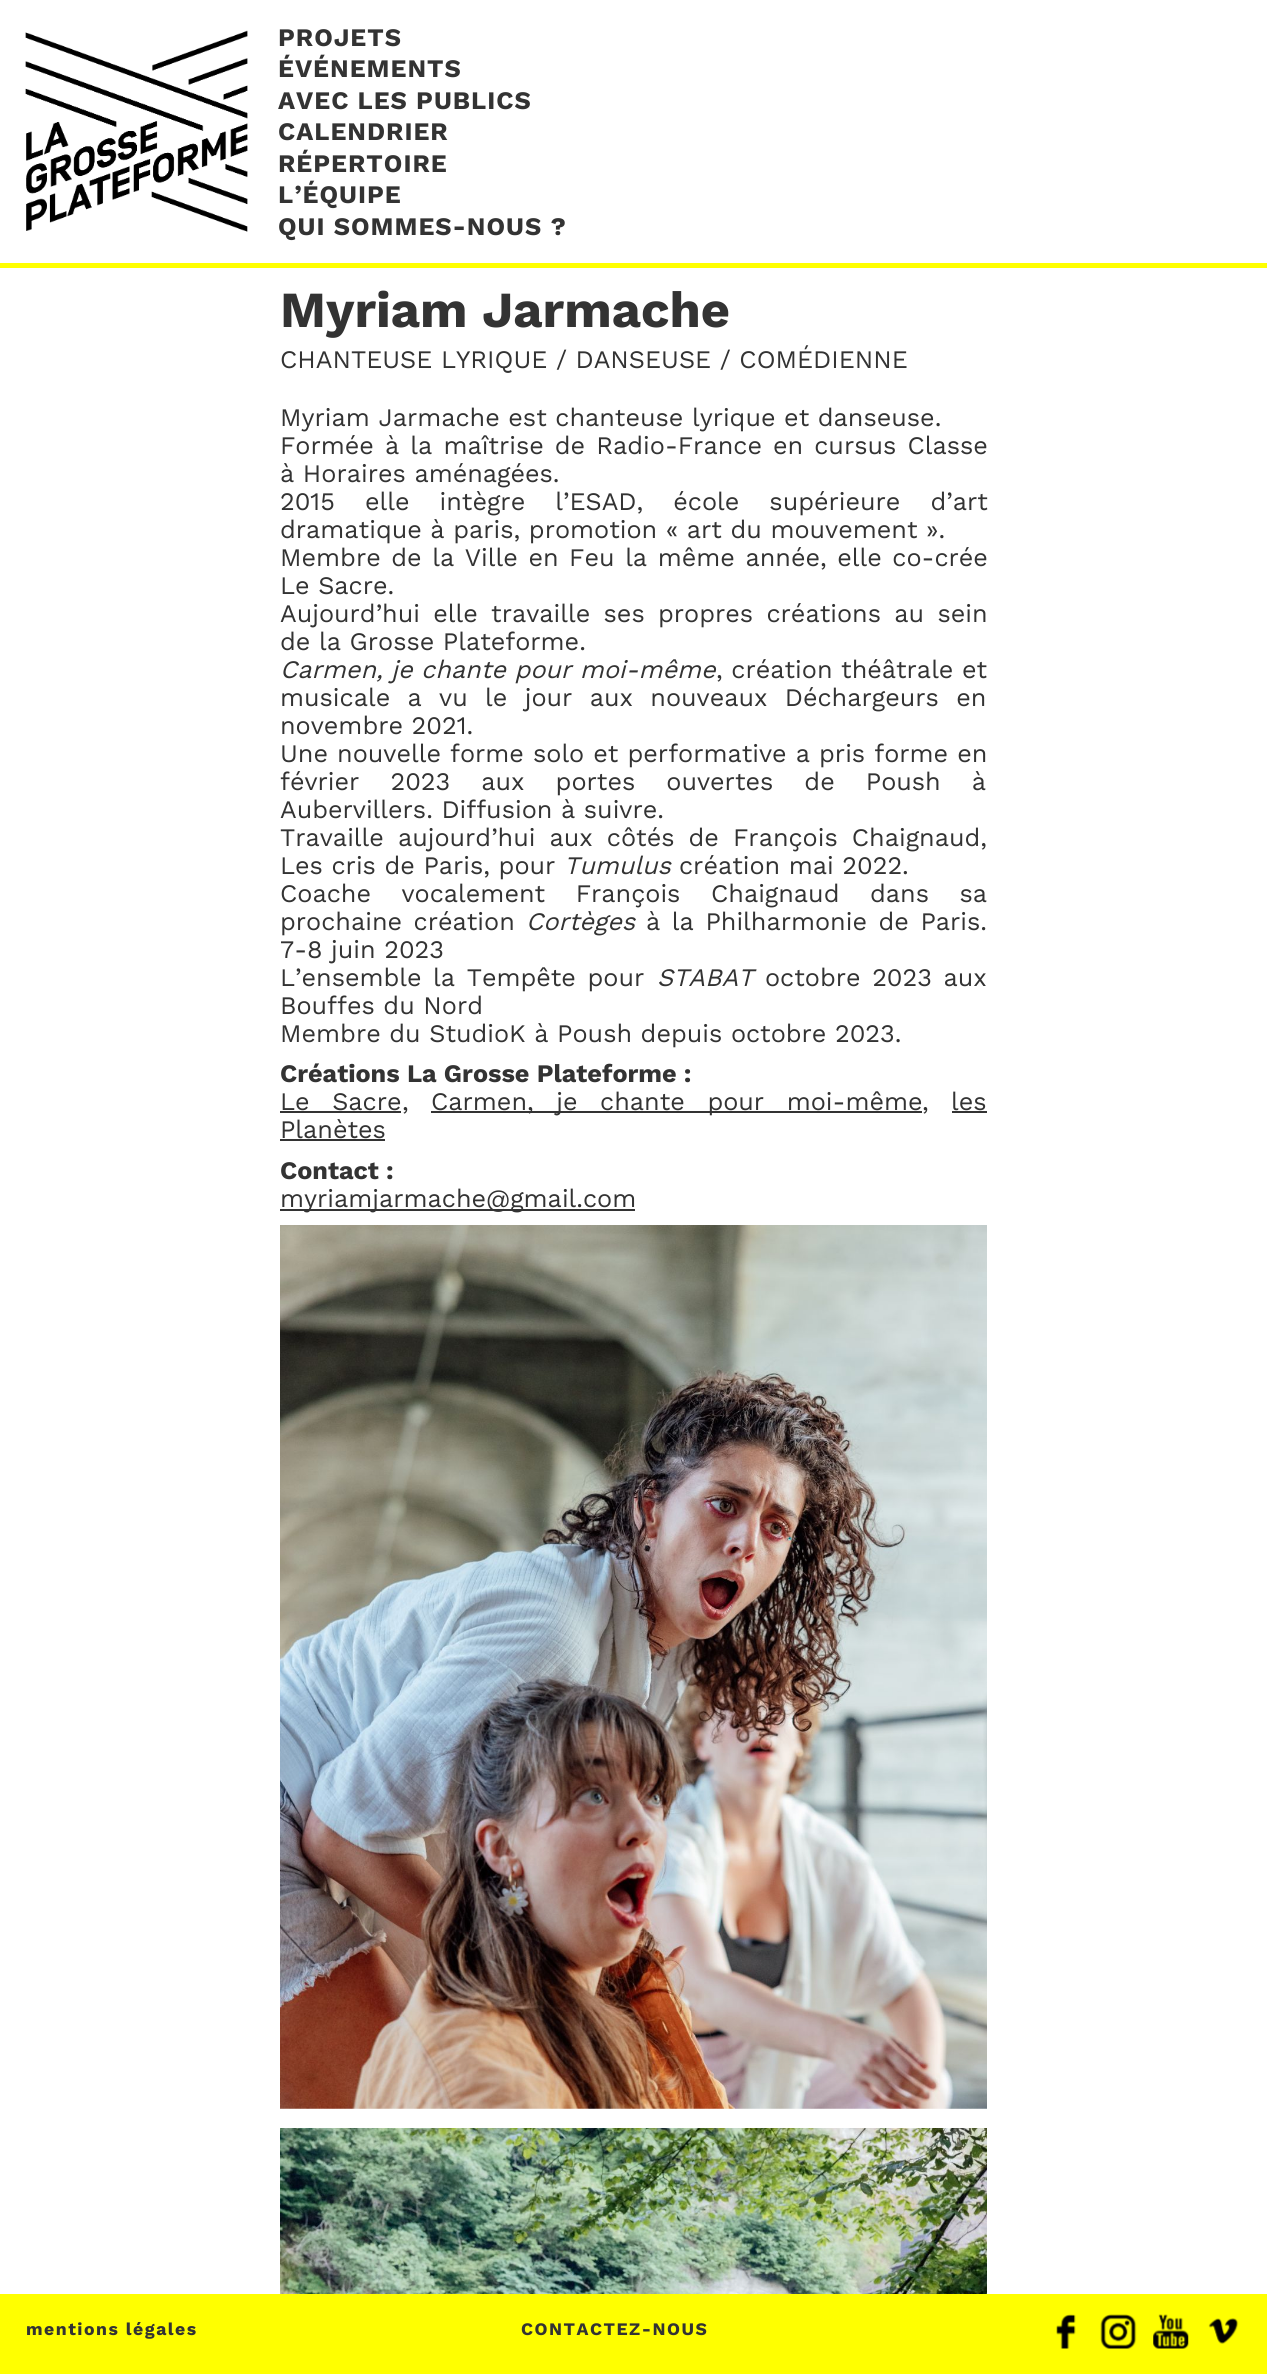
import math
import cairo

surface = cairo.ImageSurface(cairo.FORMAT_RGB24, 1267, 2374)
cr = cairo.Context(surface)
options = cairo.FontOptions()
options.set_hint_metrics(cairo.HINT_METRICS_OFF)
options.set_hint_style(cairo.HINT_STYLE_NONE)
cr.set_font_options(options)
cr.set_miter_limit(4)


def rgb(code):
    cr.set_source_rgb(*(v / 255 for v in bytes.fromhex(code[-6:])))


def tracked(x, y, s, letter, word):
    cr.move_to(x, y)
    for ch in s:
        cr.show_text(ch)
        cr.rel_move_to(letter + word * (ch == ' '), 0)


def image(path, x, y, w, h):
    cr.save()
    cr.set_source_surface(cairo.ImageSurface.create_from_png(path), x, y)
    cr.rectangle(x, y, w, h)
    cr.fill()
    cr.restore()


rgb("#ffffff")
cr.paint()
image("img/1.png", 25, 30, 223, 202)
for x, y, w, h, color in [
    (0, 263, 1267, 5, "#ffff00"),
    (280, 1111, 121, 2, "#333333"),
    (431, 1111, 491, 2, "#333333"),
    (952, 1111, 35, 2, "#333333"),
    (280, 1139, 105, 2, "#333333"),
    (280, 1209, 355, 2, "#333333"),
]:
    rgb(color)
    cr.rectangle(x, y, w, h)
    cr.fill()
image("img/2.png", 280, 1225, 707, 884)
image("img/3.png", 280, 2128, 707, 166)
rgb("#ffff00")
cr.rectangle(0, 2294, 1267, 80)
cr.fill()
image("img/4.png", 1056, 2314, 20, 35)
image("img/5.png", 1100, 2314, 37, 35)
image("img/6.png", 1153, 2314, 36, 35)
image("img/7.png", 1208, 2318, 31, 26)
cr.select_font_face("Work Sans", cairo.FONT_SLANT_NORMAL, cairo.FONT_WEIGHT_BOLD)
cr.set_font_size(25.2)
rgb("#333333")
for x, y, s in [
    (278, 46, "PROJETS"),
    (278, 77, "ÉVÉNEMENTS"),
    (278, 109, "AVEC LES PUBLICS"),
    (278, 140, "CALENDRIER"),
    (278, 172, "RÉPERTOIRE"),
    (278, 203, "L’ÉQUIPE"),
    (278, 235, "QUI SOMMES-NOUS ?"),
]:
    tracked(x, y, s, 1, 0)
cr.set_font_size(50.5)
cr.move_to(280, 327)
cr.show_text("Myriam Jarmache")
cr.select_font_face("Work Sans")
cr.set_font_size(25.2)
cr.move_to(280, 368)
cr.show_text("CHANTEUSE LYRIQUE / DANSEUSE / COMÉDIENNE")
cr.move_to(280, 426)
cr.show_text("Myriam Jarmache est chanteuse lyrique et danseuse.")
tracked(280, 454, "Formée à la maîtrise de Radio-France en cursus Classe", 0, 2.5)
cr.move_to(280, 482)
cr.show_text("à Horaires aménagées.")
tracked(280, 510, "2015 elle intègre l’ESAD, école supérieure d’art", 0, 21.5)
cr.move_to(280, 538)
cr.show_text("dramatique à paris, promotion « art du mouvement ».")
tracked(280, 566, "Membre de la Ville en Feu la même année, elle co-crée", 0, 2)
cr.move_to(280, 594)
cr.show_text("Le Sacre.")
tracked(280, 622, "Aujourd’hui elle travaille ses propres créations au sein", 0, 4.75)
cr.move_to(280, 650)
cr.show_text("de la Grosse Plateforme.")
cr.select_font_face("Work Sans", cairo.FONT_SLANT_ITALIC)
cr.move_to(280, 678)
cr.show_text("Carmen, je chante pour moi-même")
cr.select_font_face("Work Sans")
cr.move_to(716, 678)
cr.show_text(", création théâtrale et")
tracked(280, 706, "musicale a vu le jour aux nouveaux Déchargeurs en", 0, 8.75)
cr.move_to(280, 734)
cr.show_text("novembre 2021.")
tracked(280, 762, "Une nouvelle forme solo et performative a pris forme en", 0, 0.5)
tracked(280, 790, "février 2023 aux portes ouvertes de Poush à", 0, 22.5)
cr.move_to(280, 818)
cr.show_text("Aubervillers. Diffusion à suivre.")
tracked(280, 846, "Travaille aujourd’hui aux côtés de François Chaignaud,", 0, 5.5)
cr.move_to(280, 874)
cr.show_text("Les cris de Paris, pour")
cr.select_font_face("Work Sans", cairo.FONT_SLANT_ITALIC)
cr.move_to(564, 874)
cr.show_text("Tumulus")
cr.select_font_face("Work Sans")
cr.move_to(679, 874)
cr.show_text("création mai 2022.")
tracked(280, 902, "Coache vocalement François Chaignaud dans sa", 0, 22)
tracked(280, 930, "prochaine création", 0, 3)
cr.select_font_face("Work Sans", cairo.FONT_SLANT_ITALIC)
cr.move_to(526, 930)
cr.show_text("Cortèges")
cr.select_font_face("Work Sans")
tracked(646, 930, "à la Philharmonie de Paris.", 0, 3)
cr.move_to(280, 958)
cr.show_text("7-8 juin 2023")
tracked(280, 986, "L’ensemble la Tempête pour", 0, 3)
cr.select_font_face("Work Sans", cairo.FONT_SLANT_ITALIC)
cr.move_to(657, 986)
cr.show_text("STABAT")
cr.select_font_face("Work Sans")
tracked(765, 986, "octobre 2023 aux", 0, 3)
cr.move_to(280, 1014)
cr.show_text("Bouffes du Nord")
cr.move_to(280, 1042)
cr.show_text("Membre du StudioK à Poush depuis octobre 2023.")
cr.select_font_face("Work Sans", cairo.FONT_SLANT_NORMAL, cairo.FONT_WEIGHT_BOLD)
cr.move_to(280, 1082)
cr.show_text("Créations La Grosse Plateforme :")
cr.select_font_face("Work Sans")
tracked(280, 1110, "Le Sacre", 0, 14)
cr.move_to(402, 1110)
cr.show_text(",")
tracked(431, 1110, "Carmen, je chante pour moi-même", 0, 14)
for x, y, s in [
    (922, 1110, ","),
    (951, 1110, "les"),
    (280, 1138, "Planètes"),
]:
    cr.move_to(x, y)
    cr.show_text(s)
cr.select_font_face("Work Sans", cairo.FONT_SLANT_NORMAL, cairo.FONT_WEIGHT_BOLD)
cr.move_to(280, 1179)
cr.show_text("Contact :")
cr.select_font_face("Work Sans")
cr.move_to(280, 1207)
cr.show_text("myriamjarmache@gmail.com")
cr.select_font_face("Work Sans", cairo.FONT_SLANT_NORMAL, cairo.FONT_WEIGHT_BOLD)
cr.set_font_size(17.6)
tracked(26, 2335, "mentions légales", 1.5, 0)
tracked(521, 2335, "CONTACTEZ-NOUS", 1.5, 0)
surface.write_to_png("page.png")
